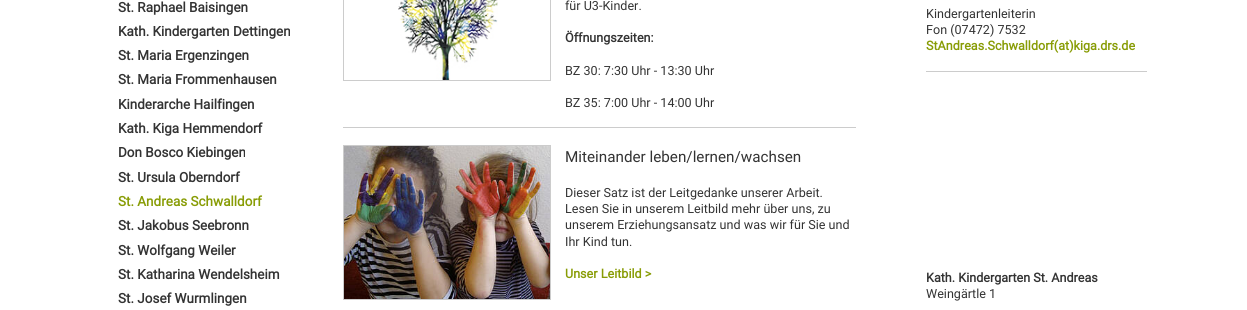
import math
import cairo

surface = cairo.ImageSurface(cairo.FORMAT_RGB24, 1247, 310)
cr = cairo.Context(surface)
options = cairo.FontOptions()
options.set_hint_metrics(cairo.HINT_METRICS_OFF)
options.set_hint_style(cairo.HINT_STYLE_NONE)
cr.set_font_options(options)
cr.set_miter_limit(4)


def rgb(code):
    cr.set_source_rgb(*(v / 255 for v in bytes.fromhex(code[-6:])))


def image(path, x, y, w, h):
    cr.save()
    cr.set_source_surface(cairo.ImageSurface.create_from_png(path), x, y)
    cr.rectangle(x, y, w, h)
    cr.fill()
    cr.restore()


rgb("#ffffff")
cr.paint()
rgb("#cccccc")
cr.rectangle(343, 127, 513, 1)
cr.fill()
cr.rectangle(343.5, -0.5, 207, 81)
cr.set_line_width(1)
cr.stroke()
image("img/1.png", 398, 0, 100, 80)
cr.rectangle(343.5, 145.5, 207, 154)
cr.stroke()
image("img/2.png", 344, 146, 206, 153)
cr.rectangle(926, 71, 221, 1)
cr.fill()
cr.select_font_face("Roboto", cairo.FONT_SLANT_NORMAL, cairo.FONT_WEIGHT_BOLD)
cr.set_font_size(13.5)
rgb("#333333")
for x, y, s in [
    (118, 12, "St. Raphael Baisingen"),
    (118, 36, "Kath. Kindergarten Dettingen"),
    (118, 60, "St. Maria Ergenzingen"),
    (118, 84, "St. Maria Frommenhausen"),
    (118, 109, "Kinderarche Hailfingen"),
    (118, 133, "Kath. Kiga Hemmendorf"),
    (118, 157, "Don Bosco Kiebingen"),
    (118, 182, "St. Ursula Oberndorf"),
]:
    cr.move_to(x, y)
    cr.show_text(s)
rgb("#889c05")
cr.move_to(118, 206)
cr.show_text("St. Andreas Schwalldorf")
rgb("#333333")
for x, y, s in [
    (118, 230, "St. Jakobus Seebronn"),
    (118, 255, "St. Wolfgang Weiler"),
    (118, 279, "St. Katharina Wendelsheim"),
    (118, 303, "St. Josef Wurmlingen"),
]:
    cr.move_to(x, y)
    cr.show_text(s)
cr.select_font_face("Roboto")
cr.set_font_size(12.6)
cr.move_to(565, 10)
cr.show_text("für U3-Kinder.")
cr.select_font_face("Roboto", cairo.FONT_SLANT_NORMAL, cairo.FONT_WEIGHT_BOLD)
cr.move_to(565, 42)
cr.show_text("Öffnungszeiten:")
cr.select_font_face("Roboto")
cr.move_to(565, 75)
cr.show_text("BZ 30: 7:30 Uhr - 13:30 Uhr")
cr.move_to(565, 107)
cr.show_text("BZ 35: 7:00 Uhr - 14:00 Uhr")
cr.set_font_size(15.25)
cr.move_to(565, 162)
cr.show_text("Miteinander leben/lernen/wachsen")
cr.set_font_size(12.6)
for x, y, s in [
    (565, 197, "Dieser Satz ist der Leitgedanke unserer Arbeit."),
    (565, 213, "Lesen Sie in unserem Leitbild mehr über uns, zu"),
    (565, 229, "unserem Erziehungsansatz und was wir für Sie und"),
    (565, 246, "Ihr Kind tun."),
]:
    cr.move_to(x, y)
    cr.show_text(s)
cr.select_font_face("Roboto", cairo.FONT_SLANT_NORMAL, cairo.FONT_WEIGHT_BOLD)
rgb("#889c05")
cr.move_to(565, 278)
cr.show_text("Unser Leitbild >")
cr.select_font_face("Roboto")
rgb("#333333")
cr.move_to(926, 18)
cr.show_text("Kindergartenleiterin")
cr.move_to(926, 34)
cr.show_text("Fon (07472) 7532")
cr.select_font_face("Roboto", cairo.FONT_SLANT_NORMAL, cairo.FONT_WEIGHT_BOLD)
rgb("#889c05")
cr.move_to(926, 50)
cr.show_text("StAndreas.Schwalldorf(at)kiga.drs.de")
rgb("#333333")
cr.move_to(926, 282)
cr.show_text("Kath. Kindergarten St. Andreas")
cr.select_font_face("Roboto")
cr.move_to(926, 298)
cr.show_text("Weingärtle 1")
surface.write_to_png("page.png")
